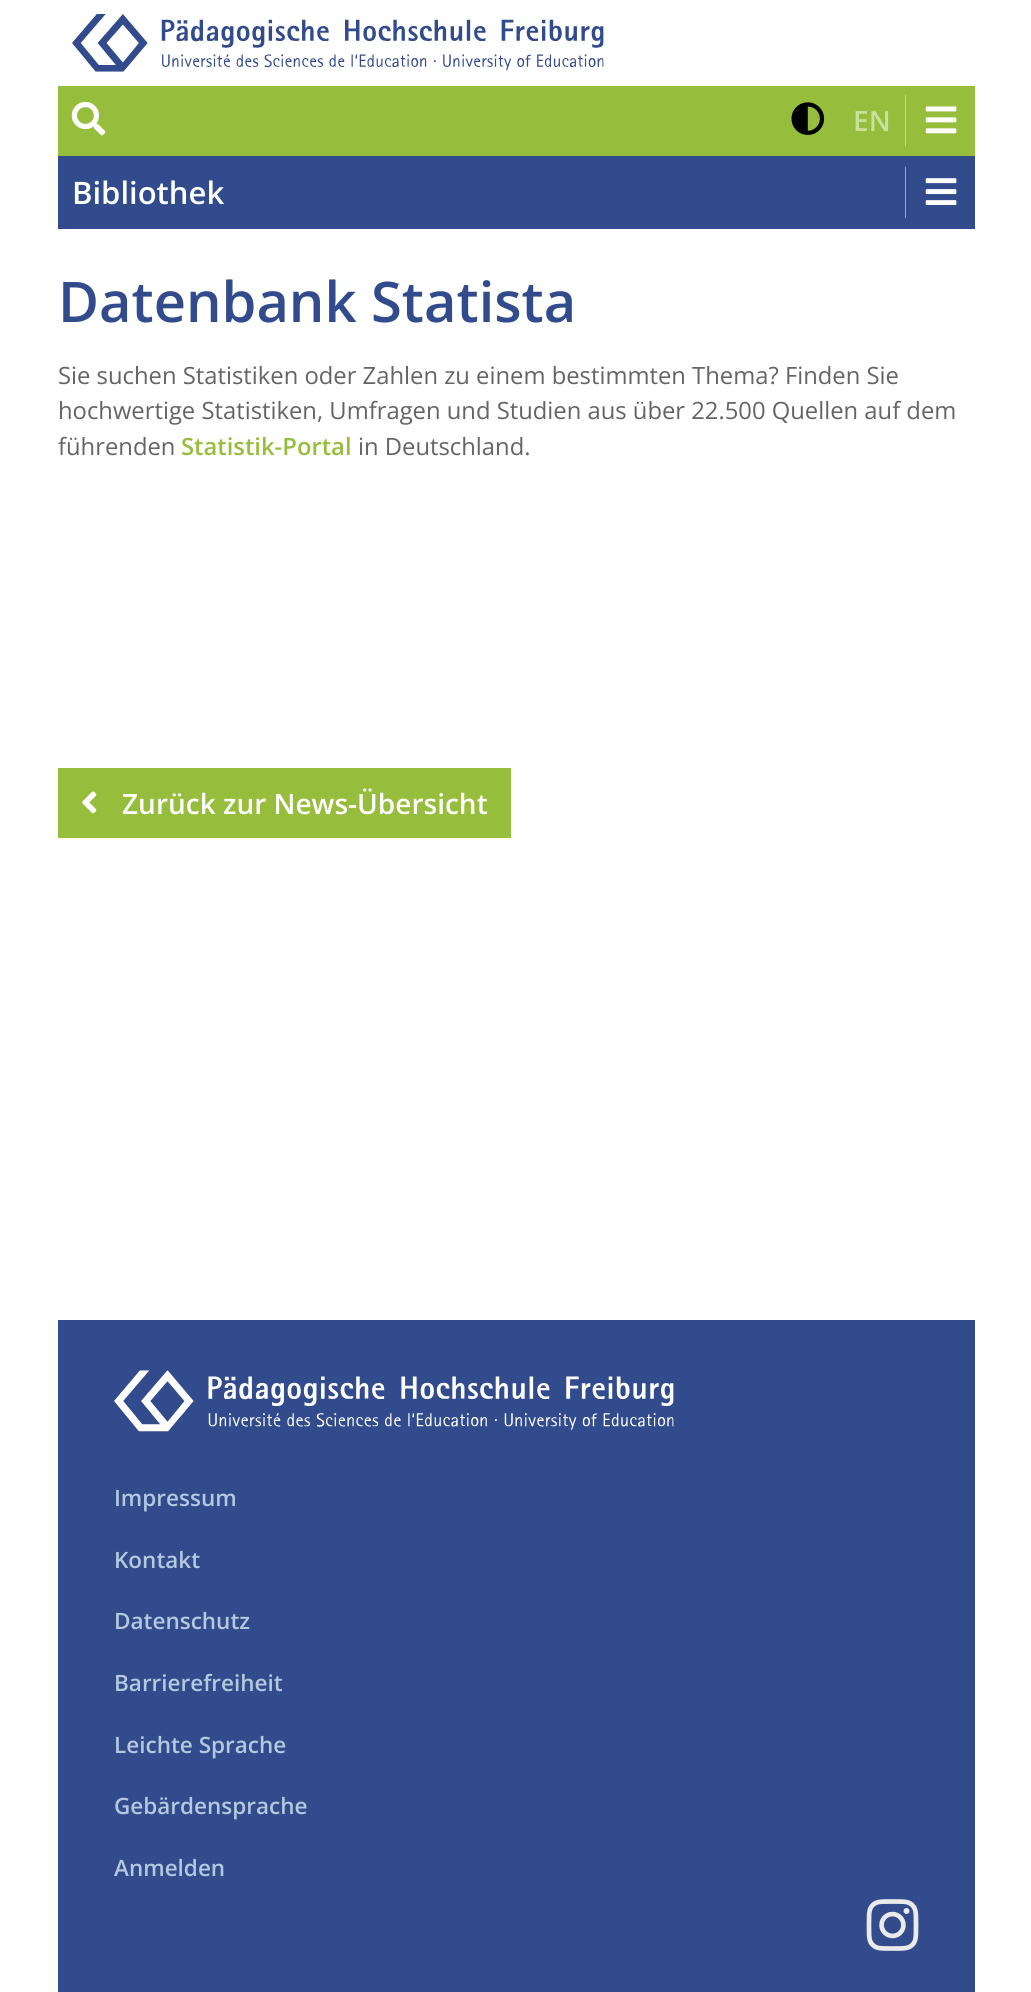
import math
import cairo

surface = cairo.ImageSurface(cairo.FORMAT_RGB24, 1031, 1992)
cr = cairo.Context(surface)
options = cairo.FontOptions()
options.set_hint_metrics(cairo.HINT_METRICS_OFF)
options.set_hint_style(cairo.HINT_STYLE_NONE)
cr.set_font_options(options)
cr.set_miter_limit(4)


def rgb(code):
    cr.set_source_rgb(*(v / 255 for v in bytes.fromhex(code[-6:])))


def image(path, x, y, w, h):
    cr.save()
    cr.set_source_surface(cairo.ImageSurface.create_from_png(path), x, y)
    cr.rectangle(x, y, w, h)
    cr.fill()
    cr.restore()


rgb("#ffffff")
cr.paint()
image("img/1.png", 72, 14, 532, 58)
rgb("#96be3c")
cr.rectangle(58, 86, 917, 70)
cr.fill()
image("img/2.png", 71, 101, 35, 35)
image("img/3.png", 791, 102, 34, 33)
rgb("#c0d88a")
cr.new_path()
cr.move_to(905, 147)
cr.line_to(905, 94)
cr.line_to(906, 96)
cr.line_to(906, 145)
cr.close_path()
cr.fill()
image("img/4.png", 925, 106, 32, 28)
rgb("#324b8c")
cr.rectangle(58, 156, 917, 73)
cr.fill()
rgb("#9ba7c6")
cr.new_path()
cr.move_to(905, 219)
cr.line_to(905, 166)
cr.line_to(906, 168)
cr.line_to(906, 217)
cr.close_path()
cr.fill()
image("img/5.png", 925, 178, 32, 27)
rgb("#96be3c")
cr.rectangle(58, 768, 453, 70)
cr.fill()
image("img/6.png", 82, 791, 15, 23)
rgb("#324b8c")
cr.rectangle(58, 1320, 917, 672)
cr.fill()
image("img/7.png", 114, 1370, 560, 62)
image("img/8.png", 866, 1899, 53, 52)
cr.select_font_face("Open Sans SemiBold")
cr.set_font_size(28)
rgb("#cbdf9e")
cr.move_to(853, 131)
cr.show_text("EN")
cr.set_font_size(31)
rgb("#ffffff")
cr.move_to(72, 204)
cr.show_text("Bibliothek")
cr.set_font_size(56)
rgb("#324b8c")
cr.move_to(58, 322)
cr.show_text("Datenbank Statista")
cr.select_font_face("Open Sans")
cr.set_font_size(23.8)
rgb("#646464")
for x, y, s in [
    (58, 384, "Sie suchen Statistiken oder Zahlen zu einem bestimmten Thema? Finden Sie"),
    (58, 419, "hochwertige Statistiken, Umfragen und Studien aus über 22.500 Quellen auf dem"),
    (58, 455, "führenden"),
]:
    cr.move_to(x, y)
    cr.show_text(s)
cr.select_font_face("Open Sans SemiBold")
rgb("#96be3c")
cr.move_to(181, 455)
cr.show_text("Statistik-Portal")
cr.select_font_face("Open Sans")
rgb("#646464")
cr.move_to(358, 455)
cr.show_text("in Deutschland.")
cr.select_font_face("Open Sans SemiBold")
cr.set_font_size(28)
rgb("#ffffff")
cr.move_to(122, 814)
cr.show_text("Zurück zur News-Übersicht")
cr.set_font_size(22.5)
rgb("#b4c8de")
for x, y, s in [
    (114, 1506, "Impressum"),
    (114, 1568, "Kontakt"),
    (114, 1629, "Datenschutz"),
    (114, 1691, "Barrierefreiheit"),
    (114, 1753, "Leichte Sprache"),
    (114, 1814, "Gebärdensprache"),
    (114, 1876, "Anmelden"),
]:
    cr.move_to(x, y)
    cr.show_text(s)
surface.write_to_png("page.png")
